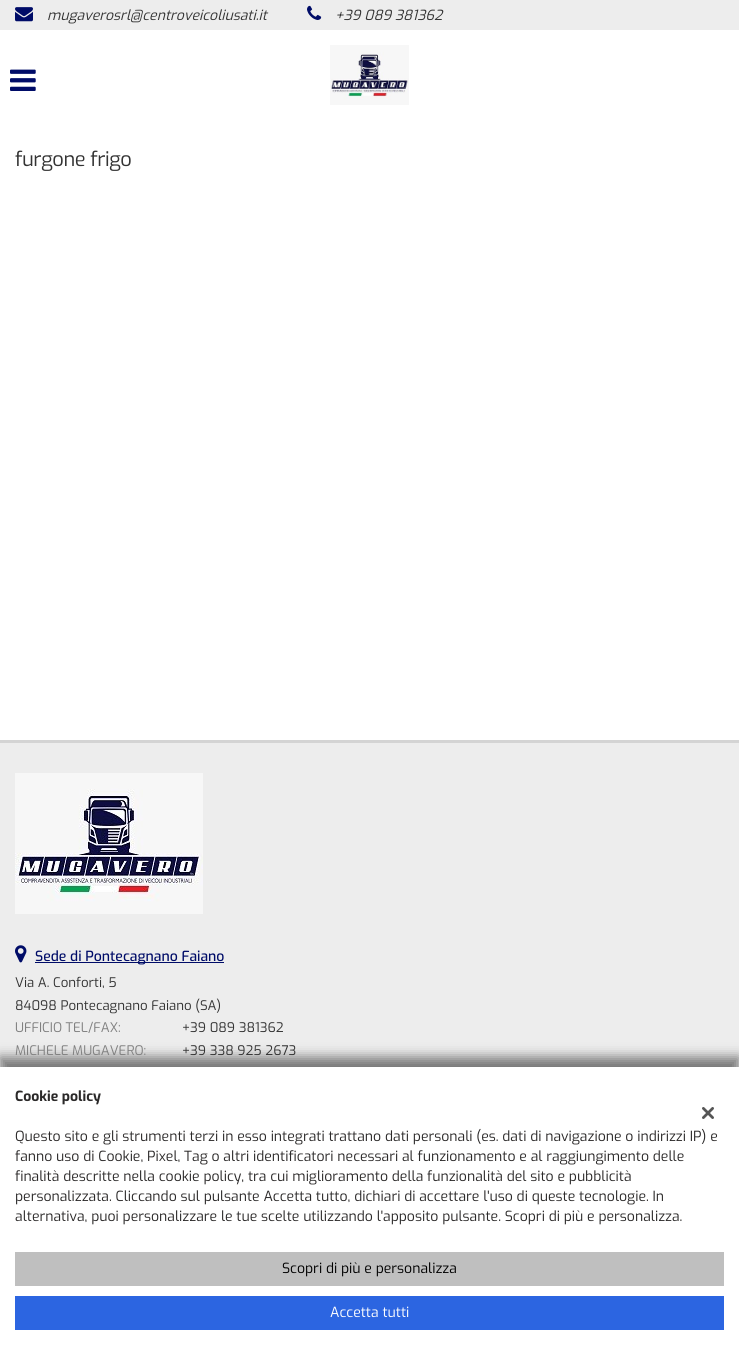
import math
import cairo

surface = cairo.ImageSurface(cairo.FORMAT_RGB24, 739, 1360)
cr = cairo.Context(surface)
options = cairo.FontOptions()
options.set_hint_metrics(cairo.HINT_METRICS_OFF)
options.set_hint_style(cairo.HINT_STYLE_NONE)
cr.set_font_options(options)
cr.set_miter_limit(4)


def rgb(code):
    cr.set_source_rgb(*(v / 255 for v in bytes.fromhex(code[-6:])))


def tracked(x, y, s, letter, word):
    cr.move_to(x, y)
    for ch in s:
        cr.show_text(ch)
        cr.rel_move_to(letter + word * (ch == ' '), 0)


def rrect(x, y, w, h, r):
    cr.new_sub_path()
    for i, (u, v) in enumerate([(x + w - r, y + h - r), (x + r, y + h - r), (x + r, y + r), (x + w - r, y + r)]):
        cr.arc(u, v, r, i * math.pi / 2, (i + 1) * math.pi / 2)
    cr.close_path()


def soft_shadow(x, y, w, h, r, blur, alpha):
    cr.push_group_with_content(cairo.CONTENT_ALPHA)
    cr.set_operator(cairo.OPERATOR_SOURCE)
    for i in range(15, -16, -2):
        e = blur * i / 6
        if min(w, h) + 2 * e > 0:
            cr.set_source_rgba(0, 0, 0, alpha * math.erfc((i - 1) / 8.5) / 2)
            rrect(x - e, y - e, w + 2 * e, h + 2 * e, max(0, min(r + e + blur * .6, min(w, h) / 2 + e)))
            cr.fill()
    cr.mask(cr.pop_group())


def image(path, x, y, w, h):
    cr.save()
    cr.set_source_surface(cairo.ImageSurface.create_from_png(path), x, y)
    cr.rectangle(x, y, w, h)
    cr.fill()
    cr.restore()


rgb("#ffffff")
cr.paint()
rgb("#ededed")
cr.rectangle(0, 0, 739, 30)
cr.fill()
image("img/1.png", 15, 7, 18, 15)
image("img/2.png", 307, 5, 15, 15)
image("img/3.png", 10, 69, 26, 22)
image("img/4.png", 330, 45, 79, 60)
cr.rectangle(0, 743, 739, 324)
cr.fill()
rgb("#d4d4d4")
cr.rectangle(0, 740, 739, 3)
cr.fill()
image("img/5.png", 15, 773, 188, 141)
image("img/6.png", 15, 945, 12, 18)
rgb("#000c68")
cr.rectangle(35, 962, 189, 1)
cr.fill()
rgb("#000000")
soft_shadow(0, 1057, 739, 293, 0, 6, 0.5)
for x, y, w, h, color in [
    (0, 1067, 739, 293, "#ffffff"),
    (15, 1252, 709, 34, "#bfbfbf"),
    (15, 1296, 709, 34, "#2c65e1"),
]:
    rgb(color)
    cr.rectangle(x, y, w, h)
    cr.fill()
image("img/7.png", 702, 1107, 12, 12)
cr.select_font_face("Exo", cairo.FONT_SLANT_ITALIC)
cr.set_font_size(14)
rgb("#333333")
cr.move_to(47, 20)
cr.show_text("mugaverosrl@centroveicoliusati.it")
cr.move_to(335, 20)
cr.show_text("+39 089 381362")
cr.select_font_face("Exo")
cr.set_font_size(20)
tracked(15, 166, "furgone frigo", -0.4, 0)
cr.select_font_face("Exo Medium")
cr.set_font_size(14)
rgb("#000c68")
cr.move_to(35, 961)
cr.show_text("Sede di Pontecagnano Faiano")
cr.select_font_face("Exo")
cr.set_font_size(13.25)
rgb("#333333")
cr.move_to(15, 987)
cr.show_text("Via A. Conforti, 5")
cr.move_to(15, 1010)
cr.show_text("84098 Pontecagnano Faiano (SA)")
rgb("#808080")
cr.move_to(15, 1032)
cr.show_text("UFFICIO TEL/FAX:")
rgb("#333333")
cr.move_to(182, 1032)
cr.show_text("+39 089 381362")
rgb("#808080")
cr.move_to(15, 1055)
cr.show_text("MICHELE MUGAVERO:")
rgb("#333333")
cr.move_to(182, 1055)
cr.show_text("+39 338 925 2673")
cr.select_font_face("Exo", cairo.FONT_SLANT_NORMAL, cairo.FONT_WEIGHT_BOLD)
cr.set_font_size(14)
rgb("#2b2929")
cr.move_to(15, 1101)
cr.show_text("Cookie policy")
cr.select_font_face("Exo")
for x, y, s in [
    (15, 1141, "Questo sito e gli strumenti terzi in esso integrati trattano dati personali (es. dati di navigazione o indirizzi IP) e"),
    (15, 1161, "fanno uso di Cookie, Pixel, Tag o altri identificatori necessari al funzionamento e al raggiungimento delle"),
    (15, 1181, "finalità descritte nella cookie policy, tra cui miglioramento della funzionalità del sito e pubblicità"),
    (15, 1201, "personalizzata. Cliccando sul pulsante Accetta tutto, dichiari di accettare l'uso di queste tecnologie. In"),
    (15, 1221, "alternativa, puoi personalizzare le tue scelte utilizzando l'apposito pulsante. Scopri di più e personalizza."),
]:
    cr.move_to(x, y)
    cr.show_text(s)
rgb("#000000")
cr.move_to(282, 1273)
cr.show_text("Scopri di più e personalizza")
rgb("#ffffff")
cr.move_to(330, 1317)
cr.show_text("Accetta tutti")
surface.write_to_png("page.png")
